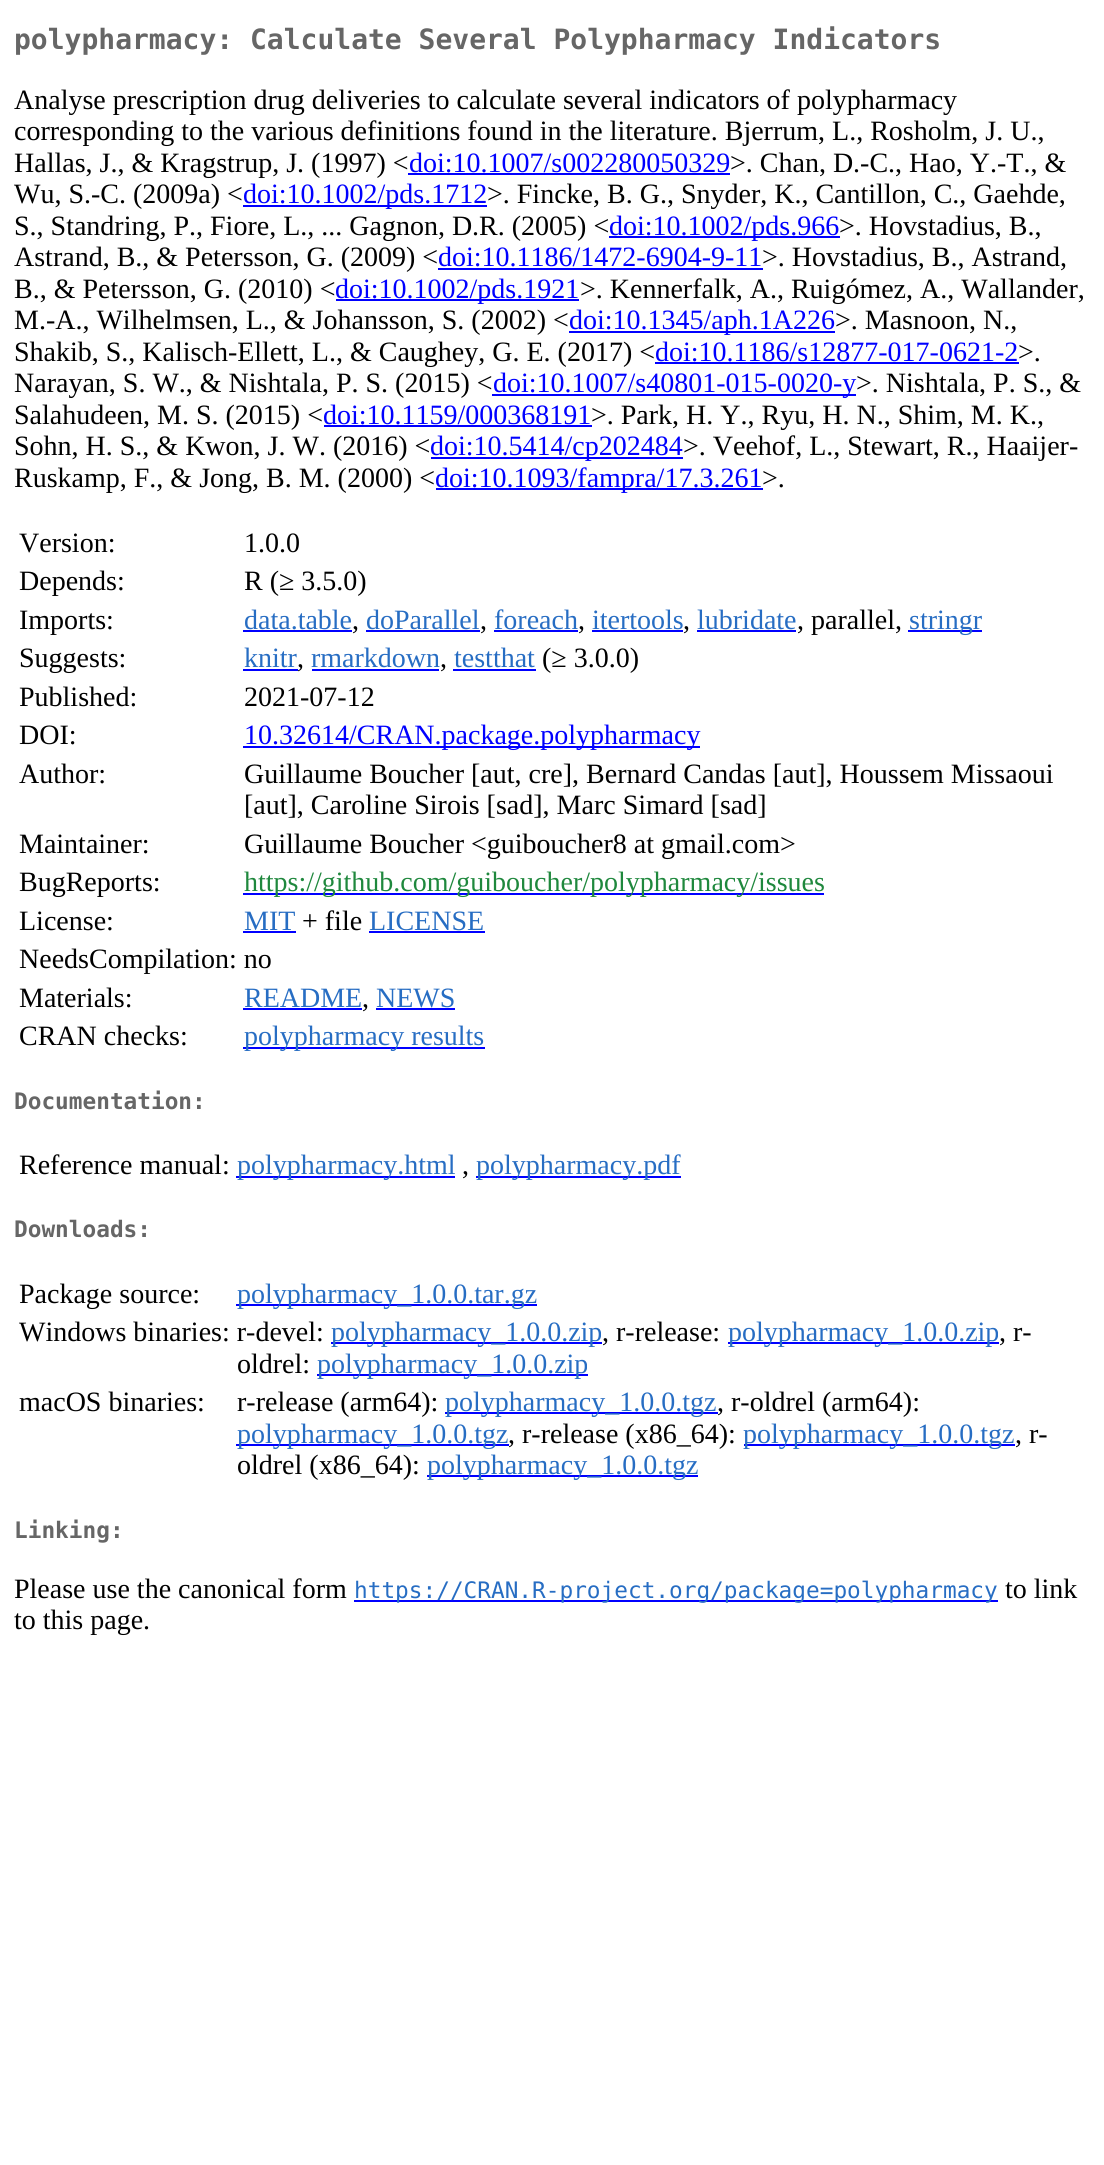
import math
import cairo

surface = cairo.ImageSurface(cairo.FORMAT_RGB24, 1104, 2165)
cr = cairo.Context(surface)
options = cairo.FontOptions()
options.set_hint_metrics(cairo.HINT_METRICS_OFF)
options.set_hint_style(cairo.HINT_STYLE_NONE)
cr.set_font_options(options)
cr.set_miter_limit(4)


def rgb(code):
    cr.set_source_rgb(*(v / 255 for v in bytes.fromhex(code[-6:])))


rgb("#ffffff")
cr.paint()
for x, y, w, h, color in [
    (408, 173, 322, 2, "#0000ff"),
    (243, 205, 244, 2, "#0000ff"),
    (609, 236, 231, 2, "#0000ff"),
    (438, 268, 325, 2, "#0000ff"),
    (336, 299, 243, 2, "#0000ff"),
    (569, 331, 266, 2, "#0000ff"),
    (655, 362, 364, 2, "#0000ff"),
    (492, 394, 364, 2, "#0000ff"),
    (324, 425, 268, 2, "#0000ff"),
    (431, 457, 252, 2, "#0000ff"),
    (436, 488, 327, 2, "#0000ff"),
    (243, 630, 109, 2, "#0000ff"),
    (366, 630, 114, 2, "#0000ff"),
    (494, 630, 84, 2, "#0000ff"),
    (592, 630, 91, 2, "#0000ff"),
    (697, 630, 99, 2, "#0000ff"),
    (908, 630, 74, 2, "#0000ff"),
    (243, 669, 55, 2, "#0000ff"),
    (312, 669, 127, 2, "#0000ff"),
    (453, 669, 83, 2, "#0000ff"),
    (243, 746, 457, 2, "#0000ff"),
    (243, 893, 581, 2, "#0000ff"),
    (243, 931, 53, 2, "#0000ff"),
    (369, 931, 116, 2, "#0000ff"),
    (243, 1008, 119, 2, "#0000ff"),
    (376, 1008, 79, 2, "#0000ff"),
    (243, 1047, 242, 2, "#0000ff"),
    (236, 1176, 219, 2, "#0000ff"),
    (476, 1176, 205, 2, "#0000ff"),
    (236, 1304, 301, 2, "#0000ff"),
    (331, 1342, 271, 2, "#0000ff"),
    (728, 1342, 271, 2, "#0000ff"),
    (317, 1374, 271, 2, "#0000ff"),
    (445, 1412, 273, 2, "#0000ff"),
    (236, 1444, 273, 2, "#0000ff"),
    (744, 1444, 271, 2, "#0000ff"),
    (427, 1475, 271, 2, "#0000ff"),
    (354, 1600, 644, 2, "#0000ff"),
]:
    rgb(color)
    cr.rectangle(x, y, w, h)
    cr.fill()
cr.select_font_face("DejaVu Sans Mono", cairo.FONT_SLANT_NORMAL, cairo.FONT_WEIGHT_BOLD)
cr.set_font_size(28)
rgb("#666666")
cr.move_to(14, 49)
cr.show_text("polypharmacy: Calculate Several Polypharmacy Indicators")
cr.select_font_face("Liberation Serif")
rgb("#000000")
for x, y, s in [
    (14, 109, "Analyse prescription drug deliveries to calculate several indicators of polypharmacy"),
    (14, 140, "corresponding to the various definitions found in the literature. Bjerrum, L., Rosholm, J. U.,"),
    (14, 172, "Hallas, J., & Kragstrup, J. (1997) <"),
]:
    cr.move_to(x, y)
    cr.show_text(s)
rgb("#0000ff")
cr.move_to(409, 172)
cr.show_text("doi:10.1007/s002280050329")
rgb("#000000")
cr.move_to(730, 172)
cr.show_text(">. Chan, D.-C., Hao, Y.-T., &")
cr.move_to(14, 203)
cr.show_text("Wu, S.-C. (2009a) <")
rgb("#0000ff")
cr.move_to(243, 203)
cr.show_text("doi:10.1002/pds.1712")
rgb("#000000")
cr.move_to(487, 203)
cr.show_text(">. Fincke, B. G., Snyder, K., Cantillon, C., Gaehde,")
cr.move_to(14, 235)
cr.show_text("S., Standring, P., Fiore, L., ... Gagnon, D.R. (2005) <")
rgb("#0000ff")
cr.move_to(609, 235)
cr.show_text("doi:10.1002/pds.966")
rgb("#000000")
cr.move_to(839, 235)
cr.show_text(">. Hovstadius, B.,")
cr.move_to(14, 266)
cr.show_text("Astrand, B., & Petersson, G. (2009) <")
rgb("#0000ff")
cr.move_to(438, 266)
cr.show_text("doi:10.1186/1472-6904-9-11")
rgb("#000000")
cr.move_to(762, 266)
cr.show_text(">. Hovstadius, B., Astrand,")
cr.move_to(14, 298)
cr.show_text("B., & Petersson, G. (2010) <")
rgb("#0000ff")
cr.move_to(335, 298)
cr.show_text("doi:10.1002/pds.1921")
rgb("#000000")
cr.move_to(580, 298)
cr.show_text(">. Kennerfalk, A., Ruigómez, A., Wallander,")
cr.move_to(14, 329)
cr.show_text("M.-A., Wilhelmsen, L., & Johansson, S. (2002) <")
rgb("#0000ff")
cr.move_to(569, 329)
cr.show_text("doi:10.1345/aph.1A226")
rgb("#000000")
cr.move_to(835, 329)
cr.show_text(">. Masnoon, N.,")
cr.move_to(14, 361)
cr.show_text("Shakib, S., Kalisch-Ellett, L., & Caughey, G. E. (2017) <")
rgb("#0000ff")
cr.move_to(655, 361)
cr.show_text("doi:10.1186/s12877-017-0621-2")
rgb("#000000")
cr.move_to(1018, 361)
cr.show_text(">.")
cr.move_to(14, 392)
cr.show_text("Narayan, S. W., & Nishtala, P. S. (2015) <")
rgb("#0000ff")
cr.move_to(493, 392)
cr.show_text("doi:10.1007/s40801-015-0020-y")
rgb("#000000")
cr.move_to(856, 392)
cr.show_text(">. Nishtala, P. S., &")
cr.move_to(14, 424)
cr.show_text("Salahudeen, M. S. (2015) <")
rgb("#0000ff")
cr.move_to(323, 424)
cr.show_text("doi:10.1159/000368191")
rgb("#000000")
cr.move_to(591, 424)
cr.show_text(">. Park, H. Y., Ryu, H. N., Shim, M. K.,")
cr.move_to(14, 455)
cr.show_text("Sohn, H. S., & Kwon, J. W. (2016) <")
rgb("#0000ff")
cr.move_to(430, 455)
cr.show_text("doi:10.5414/cp202484")
rgb("#000000")
cr.move_to(683, 455)
cr.show_text(">. Veehof, L., Stewart, R., Haaijer-")
cr.move_to(14, 487)
cr.show_text("Ruskamp, F., & Jong, B. M. (2000) <")
rgb("#0000ff")
cr.move_to(435, 487)
cr.show_text("doi:10.1093/fampra/17.3.261")
rgb("#000000")
for x, y, s in [
    (762, 487, ">."),
    (19, 552, "Version:"),
    (244, 552, "1.0.0"),
    (19, 590, "Depends:"),
    (244, 590, "R (≥ 3.5.0)"),
    (19, 629, "Imports:"),
]:
    cr.move_to(x, y)
    cr.show_text(s)
rgb("#276dc3")
cr.move_to(244, 629)
cr.show_text("data.table")
rgb("#000000")
cr.move_to(352, 629)
cr.show_text(",")
rgb("#276dc3")
cr.move_to(366, 629)
cr.show_text("doParallel")
rgb("#000000")
cr.move_to(480, 629)
cr.show_text(",")
rgb("#276dc3")
cr.move_to(494, 629)
cr.show_text("foreach")
rgb("#000000")
cr.move_to(578, 629)
cr.show_text(",")
rgb("#276dc3")
cr.move_to(592, 629)
cr.show_text("itertools")
rgb("#000000")
cr.move_to(683, 629)
cr.show_text(",")
rgb("#276dc3")
cr.move_to(697, 629)
cr.show_text("lubridate")
rgb("#000000")
cr.move_to(797, 629)
cr.show_text(", parallel,")
rgb("#276dc3")
cr.move_to(909, 629)
cr.show_text("stringr")
rgb("#000000")
cr.move_to(19, 667)
cr.show_text("Suggests:")
rgb("#276dc3")
cr.move_to(244, 667)
cr.show_text("knitr")
rgb("#000000")
cr.move_to(297, 667)
cr.show_text(",")
rgb("#276dc3")
cr.move_to(311, 667)
cr.show_text("rmarkdown")
rgb("#000000")
cr.move_to(440, 667)
cr.show_text(",")
rgb("#276dc3")
cr.move_to(454, 667)
cr.show_text("testthat")
rgb("#000000")
for x, y, s in [
    (542, 667, "(≥ 3.0.0)"),
    (19, 706, "Published:"),
    (244, 706, "2021-07-12"),
    (19, 744, "DOI:"),
]:
    cr.move_to(x, y)
    cr.show_text(s)
rgb("#0000ff")
cr.move_to(244, 744)
cr.show_text("10.32614/CRAN.package.polypharmacy")
rgb("#000000")
for x, y, s in [
    (19, 783, "Author:"),
    (244, 783, "Guillaume Boucher [aut, cre], Bernard Candas [aut], Houssem Missaoui"),
    (244, 814, "[aut], Caroline Sirois [sad], Marc Simard [sad]"),
    (19, 853, "Maintainer:"),
    (244, 853, "Guillaume Boucher <guiboucher8 at gmail.com>"),
    (19, 891, "BugReports:"),
]:
    cr.move_to(x, y)
    cr.show_text(s)
rgb("#1f883d")
cr.move_to(244, 891)
cr.show_text("https://github.com/guiboucher/polypharmacy/issues")
rgb("#000000")
cr.move_to(19, 930)
cr.show_text("License:")
rgb("#276dc3")
cr.move_to(244, 930)
cr.show_text("MIT")
rgb("#000000")
cr.move_to(302, 930)
cr.show_text("+ file")
rgb("#276dc3")
cr.move_to(369, 930)
cr.show_text("LICENSE")
rgb("#000000")
cr.move_to(19, 968)
cr.show_text("NeedsCompilation: no")
cr.move_to(19, 1007)
cr.show_text("Materials:")
rgb("#276dc3")
cr.move_to(244, 1007)
cr.show_text("README")
rgb("#000000")
cr.move_to(362, 1007)
cr.show_text(",")
rgb("#276dc3")
cr.move_to(376, 1007)
cr.show_text("NEWS")
rgb("#000000")
cr.move_to(19, 1045)
cr.show_text("CRAN checks:")
rgb("#276dc3")
cr.move_to(244, 1045)
cr.show_text("polypharmacy results")
cr.select_font_face("DejaVu Sans Mono", cairo.FONT_SLANT_NORMAL, cairo.FONT_WEIGHT_BOLD)
cr.set_font_size(22.75)
rgb("#666666")
cr.move_to(14, 1109)
cr.show_text("Documentation:")
cr.select_font_face("Liberation Serif")
cr.set_font_size(28)
rgb("#000000")
cr.move_to(19, 1174)
cr.show_text("Reference manual:")
rgb("#276dc3")
cr.move_to(237, 1174)
cr.show_text("polypharmacy.html")
rgb("#000000")
cr.move_to(462, 1174)
cr.show_text(",")
rgb("#276dc3")
cr.move_to(476, 1174)
cr.show_text("polypharmacy.pdf")
cr.select_font_face("DejaVu Sans Mono", cairo.FONT_SLANT_NORMAL, cairo.FONT_WEIGHT_BOLD)
cr.set_font_size(22.75)
rgb("#666666")
cr.move_to(14, 1237)
cr.show_text("Downloads:")
cr.select_font_face("Liberation Serif")
cr.set_font_size(28)
rgb("#000000")
cr.move_to(19, 1303)
cr.show_text("Package source:")
rgb("#276dc3")
cr.move_to(237, 1303)
cr.show_text("polypharmacy_1.0.0.tar.gz")
rgb("#000000")
cr.move_to(19, 1341)
cr.show_text("Windows binaries: r-devel:")
rgb("#276dc3")
cr.move_to(331, 1341)
cr.show_text("polypharmacy_1.0.0.zip")
rgb("#000000")
cr.move_to(602, 1341)
cr.show_text(", r-release:")
rgb("#276dc3")
cr.move_to(728, 1341)
cr.show_text("polypharmacy_1.0.0.zip")
rgb("#000000")
cr.move_to(999, 1341)
cr.show_text(", r-")
cr.move_to(237, 1373)
cr.show_text("oldrel:")
rgb("#276dc3")
cr.move_to(317, 1373)
cr.show_text("polypharmacy_1.0.0.zip")
rgb("#000000")
cr.move_to(19, 1411)
cr.show_text("macOS binaries:")
cr.move_to(237, 1411)
cr.show_text("r-release (arm64):")
rgb("#276dc3")
cr.move_to(445, 1411)
cr.show_text("polypharmacy_1.0.0.tgz")
rgb("#000000")
cr.move_to(717, 1411)
cr.show_text(", r-oldrel (arm64):")
rgb("#276dc3")
cr.move_to(237, 1443)
cr.show_text("polypharmacy_1.0.0.tgz")
rgb("#000000")
cr.move_to(508, 1443)
cr.show_text(", r-release (x86_64):")
rgb("#276dc3")
cr.move_to(743, 1443)
cr.show_text("polypharmacy_1.0.0.tgz")
rgb("#000000")
cr.move_to(1015, 1443)
cr.show_text(", r-")
cr.move_to(237, 1474)
cr.show_text("oldrel (x86_64):")
rgb("#276dc3")
cr.move_to(427, 1474)
cr.show_text("polypharmacy_1.0.0.tgz")
rgb("#ffffff")
cr.rectangle(488, 1449, 1, 1)
cr.fill()
cr.select_font_face("DejaVu Sans Mono", cairo.FONT_SLANT_NORMAL, cairo.FONT_WEIGHT_BOLD)
cr.set_font_size(22.75)
rgb("#666666")
cr.move_to(14, 1538)
cr.show_text("Linking:")
cr.select_font_face("Liberation Serif")
cr.set_font_size(28)
rgb("#000000")
cr.move_to(14, 1598)
cr.show_text("Please use the canonical form")
cr.select_font_face("DejaVu Sans Mono")
cr.set_font_size(22.75)
rgb("#276dc3")
cr.move_to(354, 1598)
cr.show_text("https://CRAN.R-project.org/package=polypharmacy")
cr.select_font_face("Liberation Serif")
cr.set_font_size(28)
rgb("#000000")
cr.move_to(1005, 1598)
cr.show_text("to link")
cr.move_to(14, 1629)
cr.show_text("to this page.")
surface.write_to_png("page.png")
